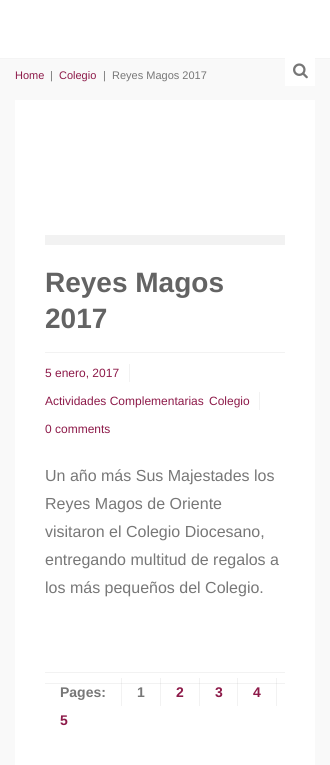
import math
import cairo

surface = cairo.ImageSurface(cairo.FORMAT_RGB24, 330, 765)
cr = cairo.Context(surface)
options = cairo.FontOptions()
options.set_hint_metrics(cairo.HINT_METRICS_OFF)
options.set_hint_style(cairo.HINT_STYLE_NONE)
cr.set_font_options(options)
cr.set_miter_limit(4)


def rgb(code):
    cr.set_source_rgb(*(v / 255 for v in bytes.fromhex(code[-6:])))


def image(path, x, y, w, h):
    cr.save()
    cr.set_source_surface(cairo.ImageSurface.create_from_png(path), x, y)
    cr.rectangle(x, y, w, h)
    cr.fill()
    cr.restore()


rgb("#ffffff")
cr.paint()
for x, y, w, h, color in [
    (0, 59, 330, 706, "#f9f9f9"),
    (0, 58, 330, 1, "#f4f4f4"),
    (285, 58, 30, 28, "#ffffff"),
]:
    rgb(color)
    cr.rectangle(x, y, w, h)
    cr.fill()
image("img/1.png", 293, 63, 15, 16)
for x, y, w, h, color in [
    (15, 100, 300, 665, "#ffffff"),
    (276, 678, 1, 28, "#f2f2f2"),
    (237, 678, 1, 28, "#f2f2f2"),
    (199, 678, 1, 28, "#f2f2f2"),
    (160, 678, 1, 28, "#f2f2f2"),
    (121, 678, 1, 28, "#f2f2f2"),
    (45, 235, 240, 10, "#f2f2f2"),
    (45, 352, 240, 1, "#f2f2f2"),
    (129, 364, 1, 18, "#f2f2f2"),
    (259, 392, 1, 18, "#f2f2f2"),
    (45, 672, 240, 1, "#f2f2f2"),
    (45, 683, 240, 1, "#f2f2f2"),
    (276, 683, 1, 1, "#e6e6e6"),
    (237, 683, 1, 1, "#e6e6e6"),
    (199, 683, 1, 1, "#e6e6e6"),
    (160, 683, 1, 1, "#e6e6e6"),
    (121, 683, 1, 1, "#e6e6e6"),
]:
    rgb(color)
    cr.rectangle(x, y, w, h)
    cr.fill()
cr.select_font_face("Liberation Sans")
cr.set_font_size(11)
rgb("#8d1a49")
cr.move_to(15, 79)
cr.show_text("Home")
rgb("#777777")
cr.move_to(50, 79)
cr.show_text("|")
rgb("#8d1a49")
cr.move_to(59, 79)
cr.show_text("Colegio")
rgb("#777777")
cr.move_to(103, 79)
cr.show_text("|")
cr.move_to(112, 79)
cr.show_text("Reyes Magos 2017")
cr.select_font_face("Liberation Sans", cairo.FONT_SLANT_NORMAL, cairo.FONT_WEIGHT_BOLD)
cr.set_font_size(28)
rgb("#636363")
cr.move_to(45, 292)
cr.show_text("Reyes Magos")
cr.move_to(45, 328)
cr.show_text("2017")
cr.select_font_face("Liberation Sans")
cr.set_font_size(12)
rgb("#8d1a49")
for x, y, s in [
    (45, 377, "5 enero, 2017"),
    (45, 405, "Actividades Complementarias"),
    (209, 405, "Colegio"),
    (45, 433, "0 comments"),
]:
    cr.move_to(x, y)
    cr.show_text(s)
cr.set_font_size(16)
rgb("#777777")
for x, y, s in [
    (45, 481, "Un año más Sus Majestades los"),
    (45, 509, "Reyes Magos de Oriente"),
    (45, 537, "visitaron el Colegio Diocesano,"),
    (45, 565, "entregando multitud de regalos a"),
    (45, 593, "los más pequeños del Colegio."),
]:
    cr.move_to(x, y)
    cr.show_text(s)
cr.select_font_face("Liberation Sans", cairo.FONT_SLANT_NORMAL, cairo.FONT_WEIGHT_BOLD)
cr.set_font_size(14)
cr.move_to(60, 697)
cr.show_text("Pages:")
cr.move_to(137, 697)
cr.show_text("1")
rgb("#8d1a49")
for x, y, s in [
    (176, 697, "2"),
    (215, 697, "3"),
    (253, 697, "4"),
    (60, 725, "5"),
]:
    cr.move_to(x, y)
    cr.show_text(s)
surface.write_to_png("page.png")
